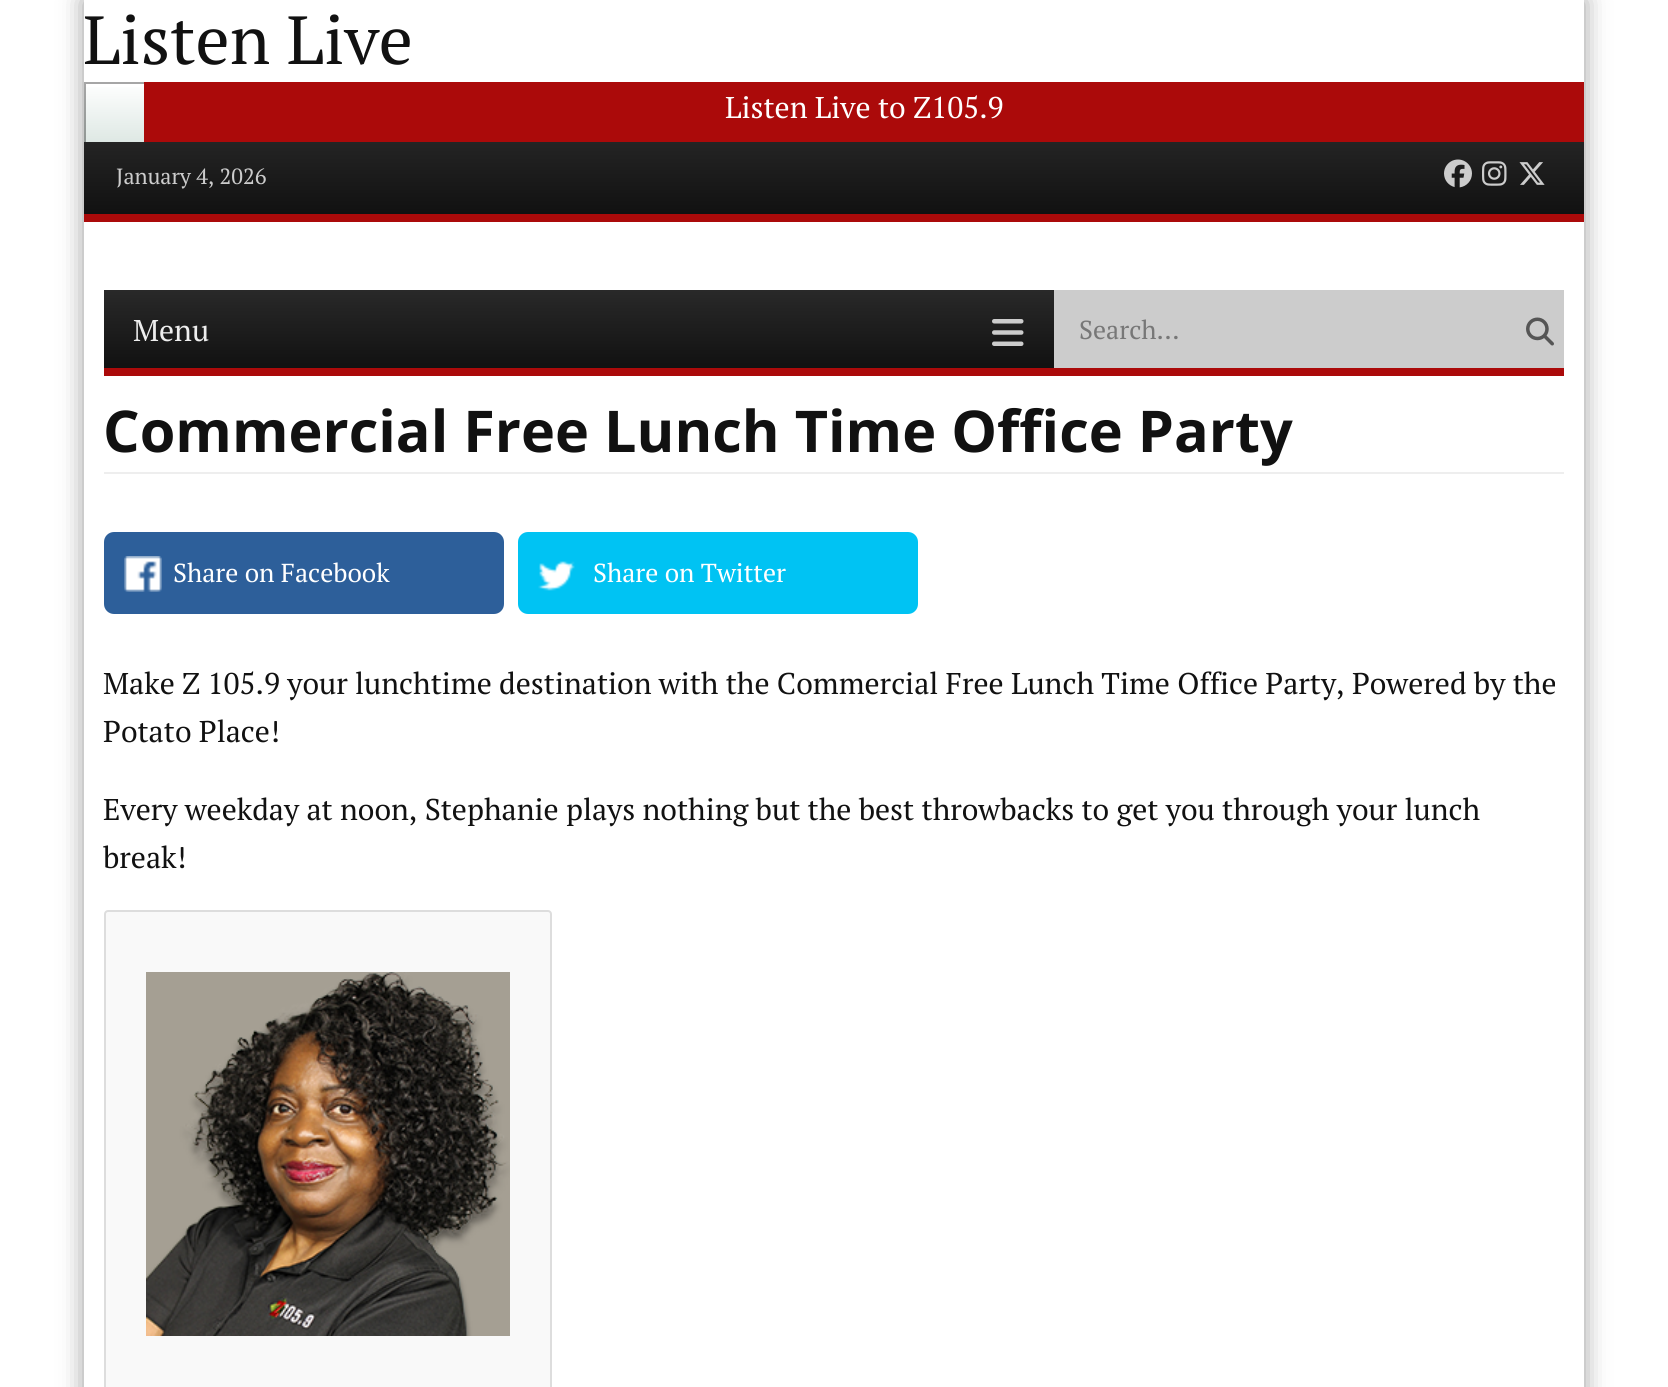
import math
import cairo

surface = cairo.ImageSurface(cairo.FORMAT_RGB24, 1668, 1387)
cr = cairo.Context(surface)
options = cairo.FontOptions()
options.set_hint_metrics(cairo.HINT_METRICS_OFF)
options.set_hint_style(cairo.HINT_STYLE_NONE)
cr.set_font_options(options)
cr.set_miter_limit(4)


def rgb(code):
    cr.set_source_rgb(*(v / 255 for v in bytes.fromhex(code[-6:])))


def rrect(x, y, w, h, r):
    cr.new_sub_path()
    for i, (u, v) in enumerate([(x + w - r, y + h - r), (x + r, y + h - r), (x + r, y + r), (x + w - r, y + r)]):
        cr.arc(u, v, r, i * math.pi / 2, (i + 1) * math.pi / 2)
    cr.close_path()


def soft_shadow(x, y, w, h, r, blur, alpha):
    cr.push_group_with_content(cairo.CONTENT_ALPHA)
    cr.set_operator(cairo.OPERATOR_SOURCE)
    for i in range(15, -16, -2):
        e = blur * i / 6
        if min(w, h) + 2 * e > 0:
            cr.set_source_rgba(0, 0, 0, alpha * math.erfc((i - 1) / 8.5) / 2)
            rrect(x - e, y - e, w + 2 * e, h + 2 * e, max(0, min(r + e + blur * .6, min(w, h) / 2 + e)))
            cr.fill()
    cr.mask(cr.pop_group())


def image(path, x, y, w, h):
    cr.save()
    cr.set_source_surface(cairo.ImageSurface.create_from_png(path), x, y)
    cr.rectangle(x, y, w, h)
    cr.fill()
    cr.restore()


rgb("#ffffff")
cr.paint()
cr.save()
cr.set_fill_rule(cairo.FILL_RULE_EVEN_ODD)
cr.new_path()
cr.move_to(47, 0)
cr.line_to(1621, 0)
cr.line_to(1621, 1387)
cr.line_to(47, 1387)
cr.close_path()
cr.move_to(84, 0)
cr.line_to(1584, 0)
cr.line_to(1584, 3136)
cr.line_to(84, 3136)
cr.close_path()
cr.clip()
rgb("#000000")
soft_shadow(84, 0, 1500, 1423, 0, 12, 0.4)
cr.restore()
gradient = cairo.LinearGradient(114, 82, 114, 142)
gradient.add_color_stop_rgba(0, 1, 1, 1, 1)
gradient.add_color_stop_rgba(1, 0.871, 0.91, 0.894, 1)
cr.set_source(gradient)
cr.rectangle(84, 87, 60, 55)
cr.fill()
cr.save()
cr.rectangle(84, 82, 60, 60)
cr.clip()
cr.set_source_rgba(0, 0, 0, 0.35)
cr.set_fill_rule(cairo.FILL_RULE_EVEN_ODD)
cr.new_path()
cr.move_to(-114, -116)
cr.line_to(342, -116)
cr.line_to(342, 340)
cr.line_to(-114, 340)
cr.close_path()
cr.move_to(86, 84)
cr.line_to(146, 84)
cr.line_to(146, 144)
cr.line_to(86, 144)
cr.close_path()
cr.fill()
cr.restore()
rgb("#ab0a0a")
cr.rectangle(144, 82, 1440, 60)
cr.fill()
gradient = cairo.LinearGradient(834, 142, 834, 214)
gradient.add_color_stop_rgba(0, 0.141, 0.141, 0.141, 1)
gradient.add_color_stop_rgba(1, 0.067, 0.067, 0.067, 1)
cr.set_source(gradient)
cr.rectangle(84, 142, 1500, 72)
cr.fill()
rgb("#ab0a0a")
cr.rectangle(84, 214, 1500, 8)
cr.fill()
image("img/1.png", 1444, 159, 28, 29)
image("img/2.png", 1482, 161, 25, 25)
image("img/3.png", 1519, 162, 26, 23)
cr.rectangle(104, 368, 1460, 8)
cr.fill()
gradient = cairo.LinearGradient(579, 290, 579, 368)
gradient.add_color_stop_rgba(0, 0.161, 0.161, 0.161, 1)
gradient.add_color_stop_rgba(1, 0.067, 0.067, 0.067, 1)
cr.set_source(gradient)
cr.rectangle(104, 290, 950, 78)
cr.fill()
image("img/4.png", 992, 319, 32, 27)
rgb("#cccccc")
cr.rectangle(1054, 290, 510, 78)
cr.fill()
image("img/5.png", 1526, 317, 28, 29)
rgb("#eeeeee")
cr.rectangle(104, 472, 1460, 2)
cr.fill()
rgb("#2d5f9a")
rrect(104, 532, 400, 82, 10)
cr.fill()
image("img/6.png", 124, 556, 38, 36)
rgb("#00c3f3")
rrect(518, 532, 400, 82, 10)
cr.fill()
image("img/7.png", 538, 561, 37, 30)
rgb("#f9f9f9")
rrect(105, 911, 446, 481, 3)
cr.fill_preserve()
rgb("#dddddd")
cr.stroke()
image("img/8.png", 146, 972, 364, 364)
cr.select_font_face("PT Serif")
cr.set_font_size(68)
rgb("#111111")
cr.move_to(83, 64)
cr.show_text("Listen Live")
cr.set_font_size(30)
rgb("#ffffff")
cr.move_to(725, 118)
cr.show_text("Listen Live to Z105.9")
cr.set_font_size(22)
rgb("#cccccc")
cr.move_to(116, 184)
cr.show_text("January 4, 2026")
cr.set_font_size(30)
rgb("#eeeeee")
cr.move_to(133, 341)
cr.show_text("Menu")
cr.set_font_size(26)
rgb("#777777")
cr.move_to(1079, 339)
cr.show_text("Search…")
cr.select_font_face("Open Sans", cairo.FONT_SLANT_NORMAL, cairo.FONT_WEIGHT_BOLD)
cr.set_font_size(57.6)
rgb("#111111")
cr.move_to(103, 452)
cr.show_text("Commercial Free Lunch Time Office Party")
cr.select_font_face("PT Serif")
cr.set_font_size(26)
rgb("#ffffff")
cr.move_to(173, 582)
cr.show_text("Share on Facebook")
cr.move_to(593, 582)
cr.show_text("Share on Twitter")
cr.set_font_size(30)
rgb("#111111")
for x, y, s in [
    (103, 694, "Make Z 105.9 your lunchtime destination with the Commercial Free Lunch Time Office Party, Powered by the"),
    (103, 742, "Potato Place!"),
    (103, 820, "Every weekday at noon, Stephanie plays nothing but the best throwbacks to get you through your lunch"),
    (103, 868, "break!"),
]:
    cr.move_to(x, y)
    cr.show_text(s)
surface.write_to_png("page.png")
